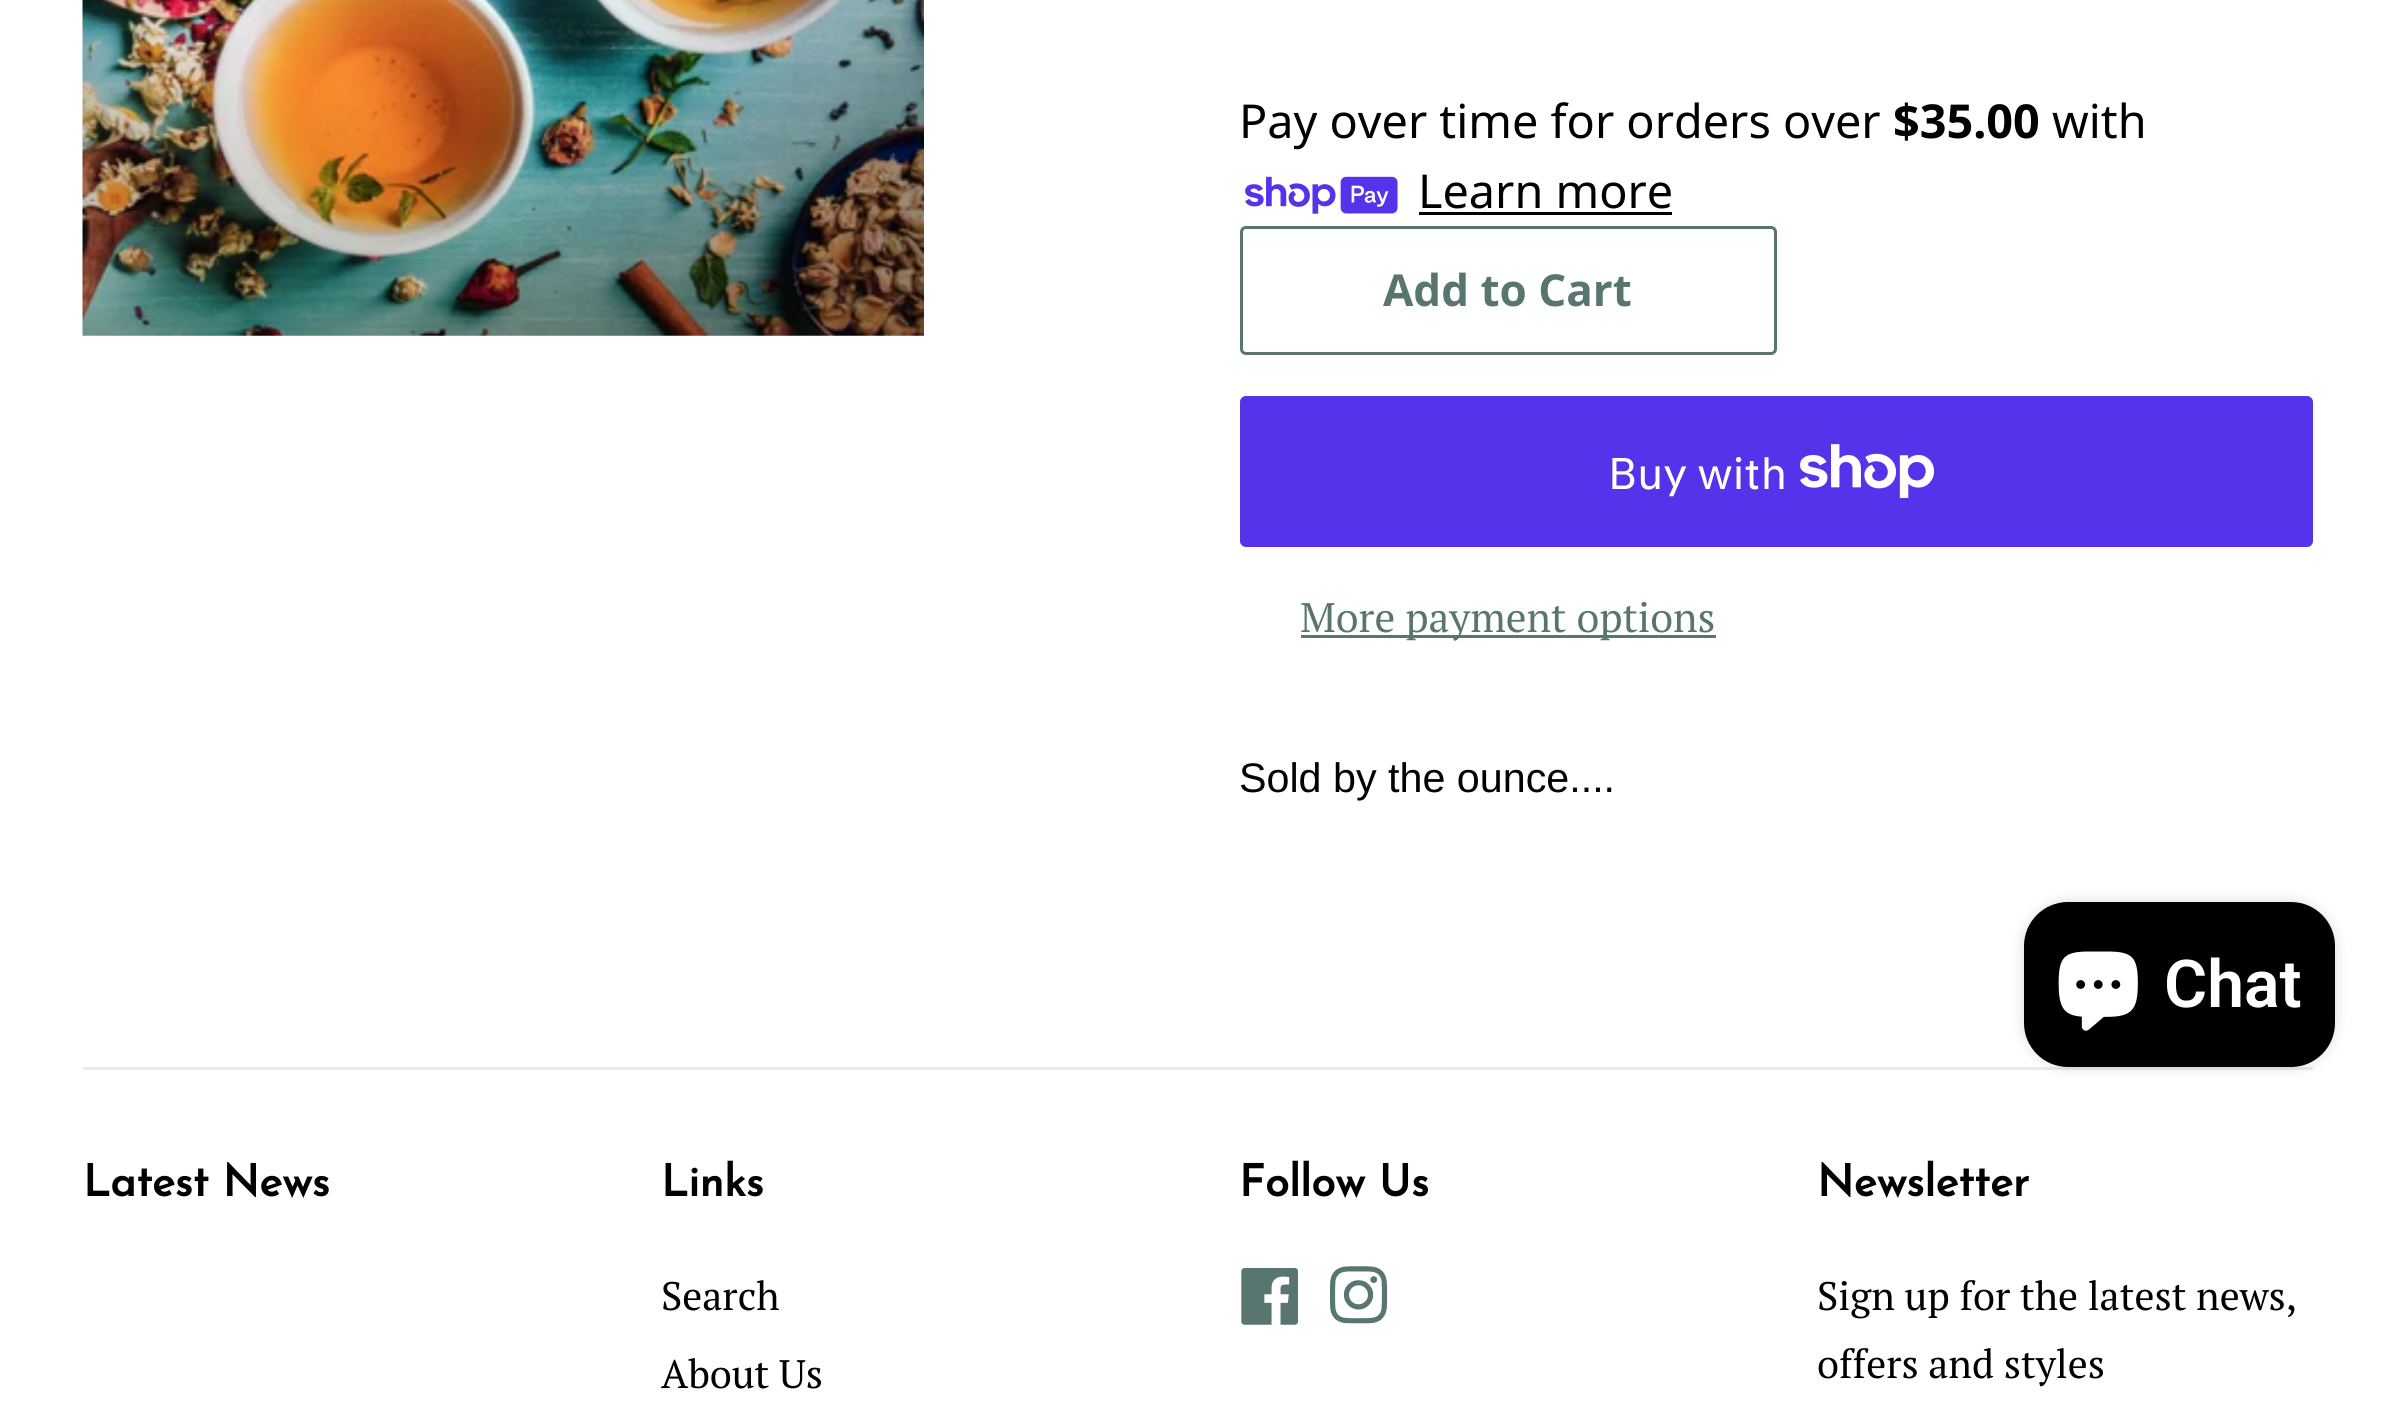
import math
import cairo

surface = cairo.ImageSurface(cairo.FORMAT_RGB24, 2394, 1410)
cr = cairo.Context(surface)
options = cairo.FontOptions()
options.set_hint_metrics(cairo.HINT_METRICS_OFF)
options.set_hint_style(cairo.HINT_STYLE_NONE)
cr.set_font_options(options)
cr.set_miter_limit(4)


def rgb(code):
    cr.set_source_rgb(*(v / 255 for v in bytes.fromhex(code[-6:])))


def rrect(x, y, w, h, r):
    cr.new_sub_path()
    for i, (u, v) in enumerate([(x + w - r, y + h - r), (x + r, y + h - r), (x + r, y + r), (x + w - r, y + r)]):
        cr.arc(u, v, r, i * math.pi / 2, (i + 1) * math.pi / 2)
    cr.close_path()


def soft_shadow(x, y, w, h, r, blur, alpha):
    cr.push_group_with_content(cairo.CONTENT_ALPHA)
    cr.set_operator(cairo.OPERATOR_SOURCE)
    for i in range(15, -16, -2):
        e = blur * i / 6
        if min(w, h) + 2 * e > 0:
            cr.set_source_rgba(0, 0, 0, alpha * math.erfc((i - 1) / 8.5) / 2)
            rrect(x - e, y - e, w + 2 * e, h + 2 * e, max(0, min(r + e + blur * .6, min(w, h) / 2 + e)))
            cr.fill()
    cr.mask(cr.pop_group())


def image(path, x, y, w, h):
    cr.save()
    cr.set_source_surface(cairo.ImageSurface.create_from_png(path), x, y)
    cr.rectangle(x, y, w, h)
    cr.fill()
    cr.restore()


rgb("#ffffff")
cr.paint()
image("img/1.png", 82, 0, 842, 336)
image("img/2.png", 1245, 176, 153, 38)
rgb("#000000")
cr.rectangle(1419, 212, 253, 3)
cr.fill()
rrect(1241.5, 227.5, 534, 126, 4.5)
rgb("#59756f")
cr.set_line_width(3)
cr.stroke()
rgb("#5433eb")
rrect(1240, 396, 1073, 151, 6)
cr.fill()
image("img/3.png", 1800, 444, 135, 54)
rgb("#59756f")
cr.rectangle(1301, 635, 415, 3)
cr.fill()
rgb("#ebebeb")
cr.rectangle(83, 1067, 2230, 3)
cr.fill()
rgb("#000000")
soft_shadow(2024, 902, 311, 165, 44, 7, 0.15)
rgb("#000000")
rrect(2024, 902, 311, 165, 44)
cr.fill()
image("img/4.png", 2058, 951, 80, 80)
image("img/5.png", 1241, 1268, 58, 57)
image("img/6.png", 1330, 1266, 58, 58)
cr.select_font_face("Noto Sans")
cr.set_font_size(46.75)
cr.move_to(1239, 138)
cr.show_text("Pay over time for orders over")
cr.select_font_face("Noto Sans", cairo.FONT_SLANT_NORMAL, cairo.FONT_WEIGHT_BOLD)
cr.move_to(1893, 138)
cr.show_text("$35.00")
cr.select_font_face("Noto Sans")
cr.move_to(2052, 138)
cr.show_text("with")
cr.move_to(1418, 208)
cr.show_text("Learn more")
cr.select_font_face("Open Sans", cairo.FONT_SLANT_NORMAL, cairo.FONT_WEIGHT_BOLD)
cr.set_font_size(44)
rgb("#59756f")
cr.move_to(1383, 306)
cr.show_text("Add to Cart")
cr.select_font_face("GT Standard")
rgb("#ffffff")
cr.move_to(1608, 489)
cr.show_text("Buy with")
cr.select_font_face("PT Serif")
cr.set_font_size(41.25)
rgb("#59756f")
cr.move_to(1300, 632)
cr.show_text("More payment options")
cr.select_font_face("Liberation Sans")
rgb("#000000")
cr.move_to(1239, 792)
cr.show_text("Sold by the ounce....")
cr.select_font_face("Roboto SemiBold")
cr.set_font_size(66)
rgb("#ffffff")
cr.move_to(2164, 1007)
cr.show_text("Chat")
cr.select_font_face("Josefin Sans", cairo.FONT_SLANT_NORMAL, cairo.FONT_WEIGHT_BOLD)
cr.set_font_size(44)
rgb("#000000")
cr.move_to(83, 1196)
cr.show_text("Latest News")
cr.move_to(661, 1196)
cr.show_text("Links")
cr.select_font_face("PT Serif")
cr.set_font_size(39.75)
cr.move_to(661, 1310)
cr.show_text("Search")
cr.move_to(661, 1388)
cr.show_text("About Us")
cr.select_font_face("Josefin Sans", cairo.FONT_SLANT_NORMAL, cairo.FONT_WEIGHT_BOLD)
cr.set_font_size(44)
cr.move_to(1239, 1196)
cr.show_text("Follow Us")
cr.move_to(1817, 1196)
cr.show_text("Newsletter")
cr.select_font_face("PT Serif")
cr.set_font_size(39.75)
cr.move_to(1817, 1310)
cr.show_text("Sign up for the latest news,")
cr.move_to(1817, 1378)
cr.show_text("offers and styles")
surface.write_to_png("page.png")
